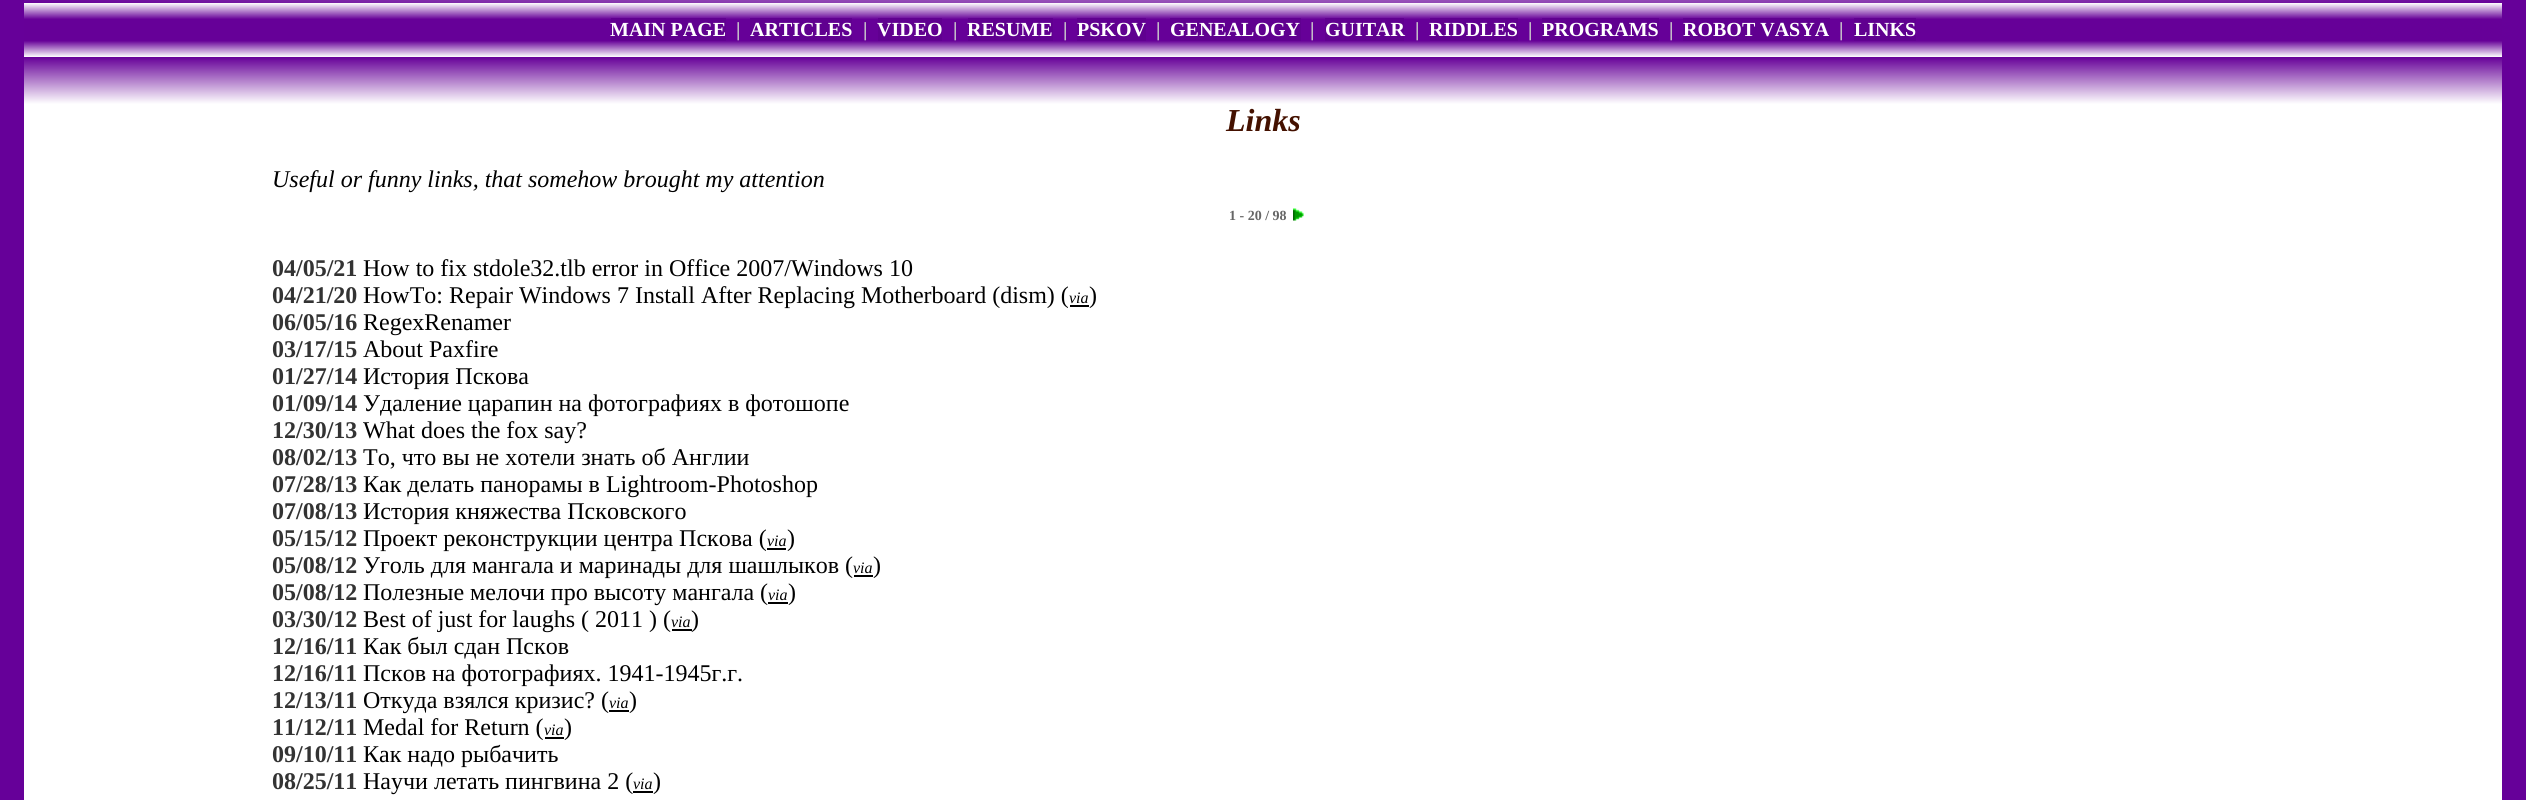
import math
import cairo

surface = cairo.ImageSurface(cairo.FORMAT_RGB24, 2526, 800)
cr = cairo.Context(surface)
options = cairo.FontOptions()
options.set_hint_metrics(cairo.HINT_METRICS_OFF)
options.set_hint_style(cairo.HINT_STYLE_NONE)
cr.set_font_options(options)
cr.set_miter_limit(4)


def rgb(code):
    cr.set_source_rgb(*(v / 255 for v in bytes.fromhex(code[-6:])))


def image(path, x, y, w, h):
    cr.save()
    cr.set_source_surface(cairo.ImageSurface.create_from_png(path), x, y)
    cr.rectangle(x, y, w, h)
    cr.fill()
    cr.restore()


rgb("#660099")
cr.paint()
gradient = cairo.RadialGradient(0, 0, 0, 0, 0, 1)
gradient.set_matrix(cairo.Matrix(1 / 1752, 0, 0, 1 / 76, -1 * 1263 / 1752, -1 * -51 / 76))
gradient.add_color_stop_rgba(0, 1, 1, 1, 1)
gradient.add_color_stop_rgba(1, 0.4, 0, 0.596, 1)
cr.set_source(gradient)
cr.rectangle(24, 0, 2478, 3)
cr.fill()
gradient = cairo.LinearGradient(1263, 3, 1263, 57)
gradient.add_color_stop_rgba(0, 1, 1, 1, 1)
gradient.add_color_stop_rgba(0.3, 0.4, 0, 0.596, 1)
gradient.add_color_stop_rgba(0.7, 0.4, 0, 0.596, 1)
gradient.add_color_stop_rgba(1, 1, 1, 1, 1)
cr.set_source(gradient)
cr.rectangle(24, 3, 2478, 54)
cr.fill()
for x, y, w, h, color in [
    (611, 18, 115, 23, "#600090"),
    (750, 18, 102, 23, "#600090"),
    (878, 18, 64, 23, "#600090"),
    (968, 18, 85, 23, "#600090"),
    (1077, 18, 69, 23, "#600090"),
    (1170, 18, 131, 23, "#600090"),
    (1325, 18, 79, 23, "#600090"),
    (1430, 18, 88, 23, "#600090"),
    (1542, 18, 117, 23, "#600090"),
    (1683, 18, 147, 23, "#600090"),
    (1854, 18, 62, 23, "#600090"),
]:
    rgb(color)
    cr.rectangle(x, y, w, h)
    cr.fill()
gradient = cairo.LinearGradient(125, 57, 125, 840)
gradient.add_color_stop_rgba(0, 0.4, 0, 0.596, 1)
gradient.add_color_stop_rgba(0.06, 1, 1, 1, 1)
gradient.add_color_stop_rgba(0.95, 1, 1, 1, 1)
gradient.add_color_stop_rgba(1, 0.4, 0, 0.596, 1)
cr.set_source(gradient)
cr.rectangle(24, 57, 203, 743)
cr.fill()
gradient = cairo.LinearGradient(1263, 57, 1263, 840)
gradient.add_color_stop_rgba(0, 0.4, 0, 0.596, 1)
gradient.add_color_stop_rgba(0.06, 1, 1, 1, 1)
gradient.add_color_stop_rgba(0.95, 1, 1, 1, 1)
gradient.add_color_stop_rgba(1, 0.4, 0, 0.596, 1)
cr.set_source(gradient)
cr.rectangle(227, 57, 2073, 743)
cr.fill()
image("img/1.png", 1293, 208, 11, 13)
for x, y, w, h, color in [
    (1070, 305, 19, 2, "#000000"),
    (767, 548, 19, 2, "#000000"),
    (854, 575, 19, 2, "#000000"),
    (768, 602, 20, 2, "#000000"),
    (672, 629, 20, 2, "#000000"),
    (609, 710, 20, 2, "#000000"),
    (545, 737, 19, 2, "#000000"),
    (633, 791, 20, 2, "#000000"),
]:
    rgb(color)
    cr.rectangle(x, y, w, h)
    cr.fill()
gradient = cairo.LinearGradient(2401, 57, 2401, 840)
gradient.add_color_stop_rgba(0, 0.4, 0, 0.596, 1)
gradient.add_color_stop_rgba(0.06, 1, 1, 1, 1)
gradient.add_color_stop_rgba(0.95, 1, 1, 1, 1)
gradient.add_color_stop_rgba(1, 0.4, 0, 0.596, 1)
cr.set_source(gradient)
cr.rectangle(2300, 57, 202, 743)
cr.fill()
cr.select_font_face("Liberation Serif", cairo.FONT_SLANT_NORMAL, cairo.FONT_WEIGHT_BOLD)
cr.set_font_size(20)
rgb("#ffffff")
cr.move_to(610, 36)
cr.show_text("MAIN PAGE")
rgb("#cccccc")
cr.move_to(736, 36)
cr.show_text("|")
rgb("#ffffff")
cr.move_to(750, 36)
cr.show_text("ARTICLES")
rgb("#cccccc")
cr.move_to(863, 36)
cr.show_text("|")
rgb("#ffffff")
cr.move_to(877, 36)
cr.show_text("VIDEO")
rgb("#cccccc")
cr.move_to(953, 36)
cr.show_text("|")
rgb("#ffffff")
cr.move_to(967, 36)
cr.show_text("RESUME")
rgb("#cccccc")
cr.move_to(1063, 36)
cr.show_text("|")
rgb("#ffffff")
cr.move_to(1077, 36)
cr.show_text("PSKOV")
rgb("#cccccc")
cr.move_to(1156, 36)
cr.show_text("|")
rgb("#ffffff")
cr.move_to(1170, 36)
cr.show_text("GENEALOGY")
rgb("#cccccc")
cr.move_to(1310, 36)
cr.show_text("|")
rgb("#ffffff")
cr.move_to(1325, 36)
cr.show_text("GUITAR")
rgb("#cccccc")
cr.move_to(1415, 36)
cr.show_text("|")
rgb("#ffffff")
cr.move_to(1429, 36)
cr.show_text("RIDDLES")
rgb("#cccccc")
cr.move_to(1528, 36)
cr.show_text("|")
rgb("#ffffff")
cr.move_to(1542, 36)
cr.show_text("PROGRAMS")
rgb("#cccccc")
cr.move_to(1669, 36)
cr.show_text("|")
rgb("#ffffff")
cr.move_to(1683, 36)
cr.show_text("ROBOT VASYA")
rgb("#cccccc")
cr.move_to(1839, 36)
cr.show_text("|")
rgb("#ffffff")
cr.move_to(1854, 36)
cr.show_text("LINKS")
cr.select_font_face("Liberation Serif", cairo.FONT_SLANT_ITALIC, cairo.FONT_WEIGHT_BOLD)
cr.set_font_size(32)
rgb("#441100")
cr.move_to(1226, 131)
cr.show_text("Links")
cr.select_font_face("Liberation Serif", cairo.FONT_SLANT_ITALIC)
cr.set_font_size(24)
rgb("#000000")
cr.move_to(272, 187)
cr.show_text("Useful or funny links, that somehow brought my attention")
cr.select_font_face("Liberation Serif", cairo.FONT_SLANT_NORMAL, cairo.FONT_WEIGHT_BOLD)
cr.set_font_size(14)
rgb("#666666")
cr.move_to(1229, 220)
cr.show_text("1 - 20 / 98")
cr.set_font_size(24)
rgb("#333333")
cr.move_to(272, 276)
cr.show_text("04/05/21")
cr.select_font_face("Liberation Serif")
rgb("#000000")
cr.move_to(363, 276)
cr.show_text("How to fix stdole32.tlb error in Office 2007/Windows 10")
cr.select_font_face("Liberation Serif", cairo.FONT_SLANT_NORMAL, cairo.FONT_WEIGHT_BOLD)
rgb("#333333")
cr.move_to(272, 303)
cr.show_text("04/21/20")
cr.select_font_face("Liberation Serif")
rgb("#000000")
cr.move_to(363, 303)
cr.show_text("HowTo: Repair Windows 7 Install After Replacing Motherboard (dism) (")
cr.select_font_face("Liberation Serif", cairo.FONT_SLANT_ITALIC)
cr.set_font_size(16)
cr.move_to(1069, 303)
cr.show_text("via")
cr.select_font_face("Liberation Serif")
cr.set_font_size(24)
cr.move_to(1089, 303)
cr.show_text(")")
cr.select_font_face("Liberation Serif", cairo.FONT_SLANT_NORMAL, cairo.FONT_WEIGHT_BOLD)
rgb("#333333")
cr.move_to(272, 330)
cr.show_text("06/05/16")
cr.select_font_face("Liberation Serif")
rgb("#000000")
cr.move_to(363, 330)
cr.show_text("RegexRenamer")
cr.select_font_face("Liberation Serif", cairo.FONT_SLANT_NORMAL, cairo.FONT_WEIGHT_BOLD)
rgb("#333333")
cr.move_to(272, 357)
cr.show_text("03/17/15")
cr.select_font_face("Liberation Serif")
rgb("#000000")
cr.move_to(363, 357)
cr.show_text("About Paxfire")
cr.select_font_face("Liberation Serif", cairo.FONT_SLANT_NORMAL, cairo.FONT_WEIGHT_BOLD)
rgb("#333333")
cr.move_to(272, 384)
cr.show_text("01/27/14")
cr.select_font_face("Liberation Serif")
rgb("#000000")
cr.move_to(363, 384)
cr.show_text("История Пскова")
cr.select_font_face("Liberation Serif", cairo.FONT_SLANT_NORMAL, cairo.FONT_WEIGHT_BOLD)
rgb("#333333")
cr.move_to(272, 411)
cr.show_text("01/09/14")
cr.select_font_face("Liberation Serif")
rgb("#000000")
cr.move_to(363, 411)
cr.show_text("Удаление царапин на фотографиях в фотошопе")
cr.select_font_face("Liberation Serif", cairo.FONT_SLANT_NORMAL, cairo.FONT_WEIGHT_BOLD)
rgb("#333333")
cr.move_to(272, 438)
cr.show_text("12/30/13")
cr.select_font_face("Liberation Serif")
rgb("#000000")
cr.move_to(363, 438)
cr.show_text("What does the fox say?")
cr.select_font_face("Liberation Serif", cairo.FONT_SLANT_NORMAL, cairo.FONT_WEIGHT_BOLD)
rgb("#333333")
cr.move_to(272, 465)
cr.show_text("08/02/13")
cr.select_font_face("Liberation Serif")
rgb("#000000")
cr.move_to(363, 465)
cr.show_text("То, что вы не хотели знать об Англии")
cr.select_font_face("Liberation Serif", cairo.FONT_SLANT_NORMAL, cairo.FONT_WEIGHT_BOLD)
rgb("#333333")
cr.move_to(272, 492)
cr.show_text("07/28/13")
cr.select_font_face("Liberation Serif")
rgb("#000000")
cr.move_to(363, 492)
cr.show_text("Как делать панорамы в Lightroom-Photoshop")
cr.select_font_face("Liberation Serif", cairo.FONT_SLANT_NORMAL, cairo.FONT_WEIGHT_BOLD)
rgb("#333333")
cr.move_to(272, 519)
cr.show_text("07/08/13")
cr.select_font_face("Liberation Serif")
rgb("#000000")
cr.move_to(363, 519)
cr.show_text("История княжества Псковского")
cr.select_font_face("Liberation Serif", cairo.FONT_SLANT_NORMAL, cairo.FONT_WEIGHT_BOLD)
rgb("#333333")
cr.move_to(272, 546)
cr.show_text("05/15/12")
cr.select_font_face("Liberation Serif")
rgb("#000000")
cr.move_to(363, 546)
cr.show_text("Проект реконструкции центра Пскова (")
cr.select_font_face("Liberation Serif", cairo.FONT_SLANT_ITALIC)
cr.set_font_size(16)
cr.move_to(767, 546)
cr.show_text("via")
cr.select_font_face("Liberation Serif")
cr.set_font_size(24)
cr.move_to(787, 546)
cr.show_text(")")
cr.select_font_face("Liberation Serif", cairo.FONT_SLANT_NORMAL, cairo.FONT_WEIGHT_BOLD)
rgb("#333333")
cr.move_to(272, 573)
cr.show_text("05/08/12")
cr.select_font_face("Liberation Serif")
rgb("#000000")
cr.move_to(363, 573)
cr.show_text("Уголь для мангала и маринады для шашлыков (")
cr.select_font_face("Liberation Serif", cairo.FONT_SLANT_ITALIC)
cr.set_font_size(16)
cr.move_to(853, 573)
cr.show_text("via")
cr.select_font_face("Liberation Serif")
cr.set_font_size(24)
cr.move_to(873, 573)
cr.show_text(")")
cr.select_font_face("Liberation Serif", cairo.FONT_SLANT_NORMAL, cairo.FONT_WEIGHT_BOLD)
rgb("#333333")
cr.move_to(272, 600)
cr.show_text("05/08/12")
cr.select_font_face("Liberation Serif")
rgb("#000000")
cr.move_to(363, 600)
cr.show_text("Полезные мелочи про высоту мангала (")
cr.select_font_face("Liberation Serif", cairo.FONT_SLANT_ITALIC)
cr.set_font_size(16)
cr.move_to(768, 600)
cr.show_text("via")
cr.select_font_face("Liberation Serif")
cr.set_font_size(24)
cr.move_to(788, 600)
cr.show_text(")")
cr.select_font_face("Liberation Serif", cairo.FONT_SLANT_NORMAL, cairo.FONT_WEIGHT_BOLD)
rgb("#333333")
cr.move_to(272, 627)
cr.show_text("03/30/12")
cr.select_font_face("Liberation Serif")
rgb("#000000")
cr.move_to(363, 627)
cr.show_text("Best of just for laughs ( 2011 ) (")
cr.select_font_face("Liberation Serif", cairo.FONT_SLANT_ITALIC)
cr.set_font_size(16)
cr.move_to(671, 627)
cr.show_text("via")
cr.select_font_face("Liberation Serif")
cr.set_font_size(24)
cr.move_to(691, 627)
cr.show_text(")")
cr.select_font_face("Liberation Serif", cairo.FONT_SLANT_NORMAL, cairo.FONT_WEIGHT_BOLD)
rgb("#333333")
cr.move_to(272, 654)
cr.show_text("12/16/11")
cr.select_font_face("Liberation Serif")
rgb("#000000")
cr.move_to(363, 654)
cr.show_text("Как был сдан Псков")
cr.select_font_face("Liberation Serif", cairo.FONT_SLANT_NORMAL, cairo.FONT_WEIGHT_BOLD)
rgb("#333333")
cr.move_to(272, 681)
cr.show_text("12/16/11")
cr.select_font_face("Liberation Serif")
rgb("#000000")
cr.move_to(363, 681)
cr.show_text("Псков на фотографиях. 1941-1945г.г.")
cr.select_font_face("Liberation Serif", cairo.FONT_SLANT_NORMAL, cairo.FONT_WEIGHT_BOLD)
rgb("#333333")
cr.move_to(272, 708)
cr.show_text("12/13/11")
cr.select_font_face("Liberation Serif")
rgb("#000000")
cr.move_to(363, 708)
cr.show_text("Откуда взялся кризис? (")
cr.select_font_face("Liberation Serif", cairo.FONT_SLANT_ITALIC)
cr.set_font_size(16)
cr.move_to(609, 708)
cr.show_text("via")
cr.select_font_face("Liberation Serif")
cr.set_font_size(24)
cr.move_to(629, 708)
cr.show_text(")")
cr.select_font_face("Liberation Serif", cairo.FONT_SLANT_NORMAL, cairo.FONT_WEIGHT_BOLD)
rgb("#333333")
cr.move_to(272, 735)
cr.show_text("11/12/11")
cr.select_font_face("Liberation Serif")
rgb("#000000")
cr.move_to(363, 735)
cr.show_text("Medal for Return (")
cr.select_font_face("Liberation Serif", cairo.FONT_SLANT_ITALIC)
cr.set_font_size(16)
cr.move_to(544, 735)
cr.show_text("via")
cr.select_font_face("Liberation Serif")
cr.set_font_size(24)
cr.move_to(564, 735)
cr.show_text(")")
cr.select_font_face("Liberation Serif", cairo.FONT_SLANT_NORMAL, cairo.FONT_WEIGHT_BOLD)
rgb("#333333")
cr.move_to(272, 762)
cr.show_text("09/10/11")
cr.select_font_face("Liberation Serif")
rgb("#000000")
cr.move_to(363, 762)
cr.show_text("Как надо рыбачить")
cr.select_font_face("Liberation Serif", cairo.FONT_SLANT_NORMAL, cairo.FONT_WEIGHT_BOLD)
rgb("#333333")
cr.move_to(272, 789)
cr.show_text("08/25/11")
cr.select_font_face("Liberation Serif")
rgb("#000000")
cr.move_to(363, 789)
cr.show_text("Научи летать пингвина 2 (")
cr.select_font_face("Liberation Serif", cairo.FONT_SLANT_ITALIC)
cr.set_font_size(16)
cr.move_to(633, 789)
cr.show_text("via")
cr.select_font_face("Liberation Serif")
cr.set_font_size(24)
cr.move_to(653, 789)
cr.show_text(")")
surface.write_to_png("page.png")
